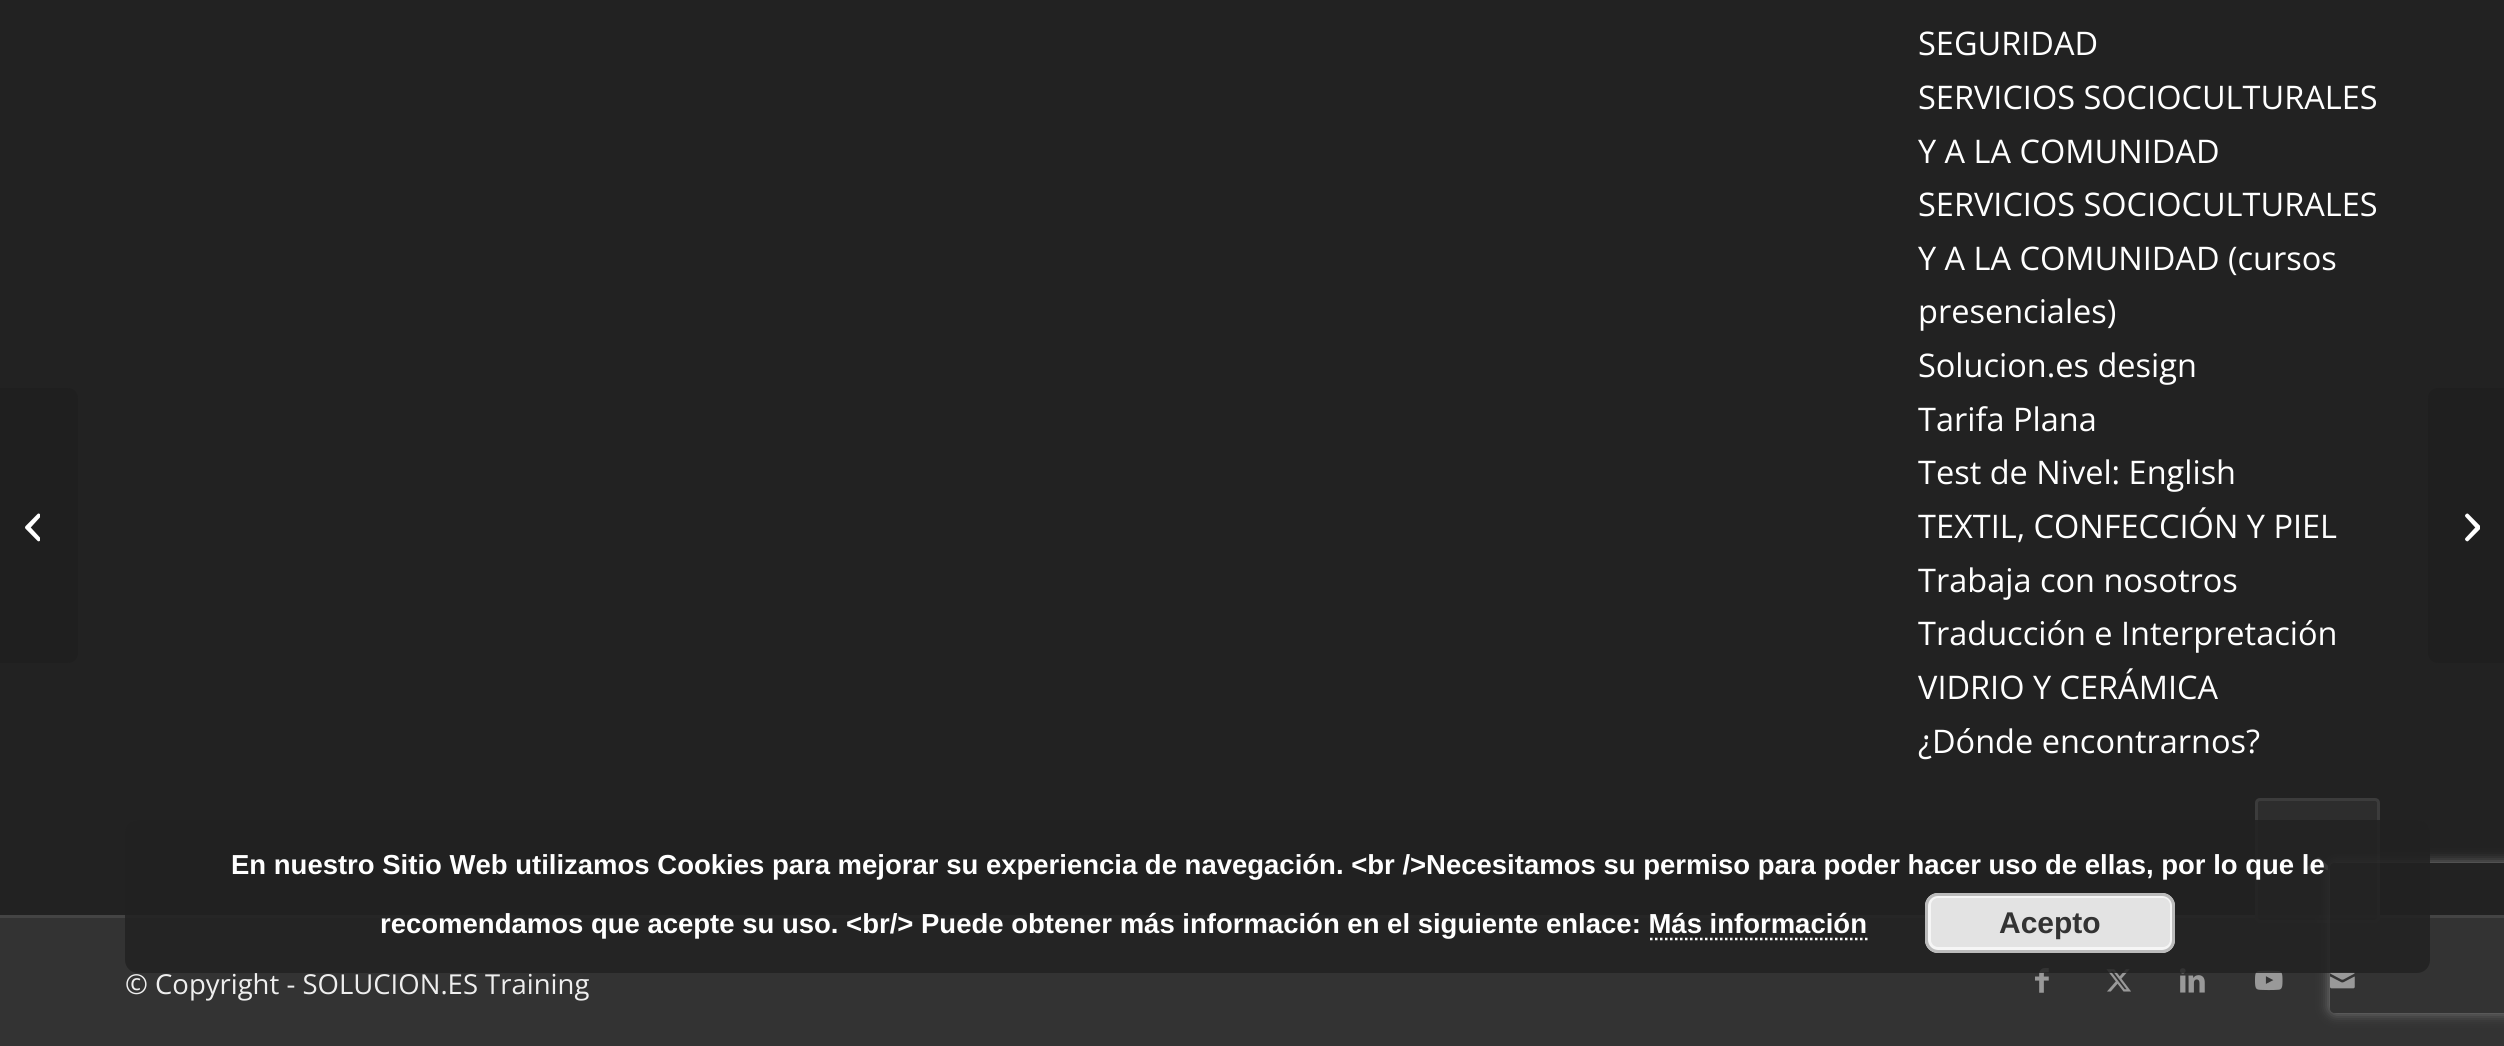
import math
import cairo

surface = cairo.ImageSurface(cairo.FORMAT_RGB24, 2504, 1046)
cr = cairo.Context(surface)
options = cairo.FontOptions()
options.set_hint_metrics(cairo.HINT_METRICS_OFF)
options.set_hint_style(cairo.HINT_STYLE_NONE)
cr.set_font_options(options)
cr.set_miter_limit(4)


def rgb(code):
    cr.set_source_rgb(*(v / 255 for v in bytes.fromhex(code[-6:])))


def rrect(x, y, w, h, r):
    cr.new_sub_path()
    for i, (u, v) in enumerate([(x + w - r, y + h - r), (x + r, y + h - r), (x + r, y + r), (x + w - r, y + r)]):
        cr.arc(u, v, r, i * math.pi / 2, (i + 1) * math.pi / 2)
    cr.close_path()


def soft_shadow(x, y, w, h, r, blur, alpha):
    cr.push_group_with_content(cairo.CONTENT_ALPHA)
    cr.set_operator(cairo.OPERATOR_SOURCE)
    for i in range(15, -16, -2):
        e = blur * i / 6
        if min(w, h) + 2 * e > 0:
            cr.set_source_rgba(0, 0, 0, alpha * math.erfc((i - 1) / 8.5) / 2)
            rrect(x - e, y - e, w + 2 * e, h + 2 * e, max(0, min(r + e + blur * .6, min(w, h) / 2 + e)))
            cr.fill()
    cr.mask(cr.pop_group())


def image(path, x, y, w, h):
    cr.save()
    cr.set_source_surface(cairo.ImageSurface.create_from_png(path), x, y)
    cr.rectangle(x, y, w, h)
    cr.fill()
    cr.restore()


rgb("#222222")
cr.paint()
rgb("#1f1f1f")
cr.new_path()
cr.move_to(0, 388)
cr.line_to(68, 388)
cr.curve_to(73.5, 388, 78, 392.5, 78, 398)
cr.line_to(78, 653)
cr.curve_to(78, 658.5, 73.5, 663, 68, 663)
cr.line_to(0, 663)
cr.close_path()
cr.fill()
image("img/1.png", 25, 513, 15, 29)
rgb("#333333")
cr.rectangle(0, 918, 2504, 128)
cr.fill()
rgb("#444444")
cr.rectangle(0, 915, 2504, 3)
cr.fill()
image("img/2.png", 2035, 968, 14, 25)
image("img/3.png", 2106, 969, 25, 23)
image("img/4.png", 2180, 968, 25, 25)
image("img/5.png", 2255, 970, 28, 21)
image("img/6.png", 2330, 972, 25, 17)
rgb("#1f1f1f")
cr.new_path()
cr.move_to(2438, 388)
cr.line_to(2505, 388)
cr.line_to(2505, 663)
cr.line_to(2438, 663)
cr.curve_to(2432.5, 663, 2428, 658.5, 2428, 653)
cr.line_to(2428, 398)
cr.curve_to(2428, 392.5, 2432.5, 388, 2438, 388)
cr.close_path()
cr.fill()
image("img/7.png", 2465, 513, 15, 29)
cr.set_source_rgba(0.2, 0.2, 0.2, 0.7)
rrect(2255, 798, 125, 125, 5)
cr.fill()
rrect(2256.5, 799.5, 122, 122, 3.5)
cr.set_source_rgba(0.267, 0.267, 0.267, 0.7)
cr.set_line_width(3)
cr.stroke()
image("img/8.png", 2308, 857, 20, 14)
cr.save()
cr.set_fill_rule(cairo.FILL_RULE_EVEN_ODD)
cr.new_path()
cr.move_to(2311, 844)
cr.line_to(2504, 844)
cr.line_to(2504, 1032)
cr.line_to(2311, 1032)
cr.close_path()
cr.move_to(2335, 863)
cr.line_to(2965, 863)
cr.curve_to(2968, 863, 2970, 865, 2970, 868)
cr.line_to(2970, 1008)
cr.curve_to(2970, 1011, 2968, 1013, 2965, 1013)
cr.line_to(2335, 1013)
cr.curve_to(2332, 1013, 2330, 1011, 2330, 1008)
cr.line_to(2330, 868)
cr.curve_to(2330, 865, 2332, 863, 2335, 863)
cr.close_path()
cr.clip()
rgb("#808080")
soft_shadow(2330, 863, 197, 150, 5, 6, 1)
cr.restore()
cr.set_source_rgba(0.129, 0.129, 0.129, 0.85)
rrect(125, 820, 2305, 153, 13)
cr.fill()
rgb("#e3e3e3")
rrect(1925, 893, 250, 60, 13)
cr.fill()
rrect(1929.5, 896.5, 242, 52, 8.5)
rgb("#f6f6f6")
cr.stroke()
rrect(1926.5, 894.5, 247, 57, 11.5)
rgb("#bbbbbb")
cr.stroke()
cr.new_path()
cr.move_to(1650, 939)
cr.line_to(1867.5, 939)
rgb("#ffffff")
cr.set_line_width(2.5)
cr.set_dash([2.5, 2.5])
cr.stroke()
cr.select_font_face("Open Sans")
cr.set_font_size(32.5)
for x, y, s in [
    (1918, 55, "SEGURIDAD"),
    (1918, 109, "SERVICIOS SOCIOCULTURALES"),
    (1918, 163, "Y A LA COMUNIDAD"),
    (1918, 216, "SERVICIOS SOCIOCULTURALES"),
    (1918, 270, "Y A LA COMUNIDAD (cursos"),
    (1918, 323, "presenciales)"),
    (1918, 377, "Solucion.es design"),
    (1918, 431, "Tarifa Plana"),
    (1918, 484, "Test de Nivel: English"),
    (1918, 538, "TEXTIL, CONFECCIÓN Y PIEL"),
    (1918, 592, "Trabaja con nosotros"),
    (1918, 645, "Traducción e Interpretación"),
    (1918, 699, "VIDRIO Y CERÁMICA"),
    (1918, 753, "¿Dónde encontrarnos?"),
]:
    cr.move_to(x, y)
    cr.show_text(s)
cr.set_font_size(27.5)
rgb("#eeeeee")
cr.move_to(125, 994)
cr.show_text("© Copyright - SOLUCION.ES Training")
cr.select_font_face("Liberation Sans", cairo.FONT_SLANT_NORMAL, cairo.FONT_WEIGHT_BOLD)
rgb("#ffffff")
cr.move_to(231, 874)
cr.show_text("En nuestro Sitio Web utilizamos Cookies para mejorar su experiencia de navegación. <br />Necesitamos su permiso para poder hacer uso de ellas, por lo que le")
cr.move_to(380, 933)
cr.show_text("recomendamos que acepte su uso. <br/> Puede obtener más información en el siguiente enlace: Más información")
cr.set_font_size(30)
rgb("#333333")
cr.move_to(1999, 933)
cr.show_text("Acepto")
surface.write_to_png("page.png")
